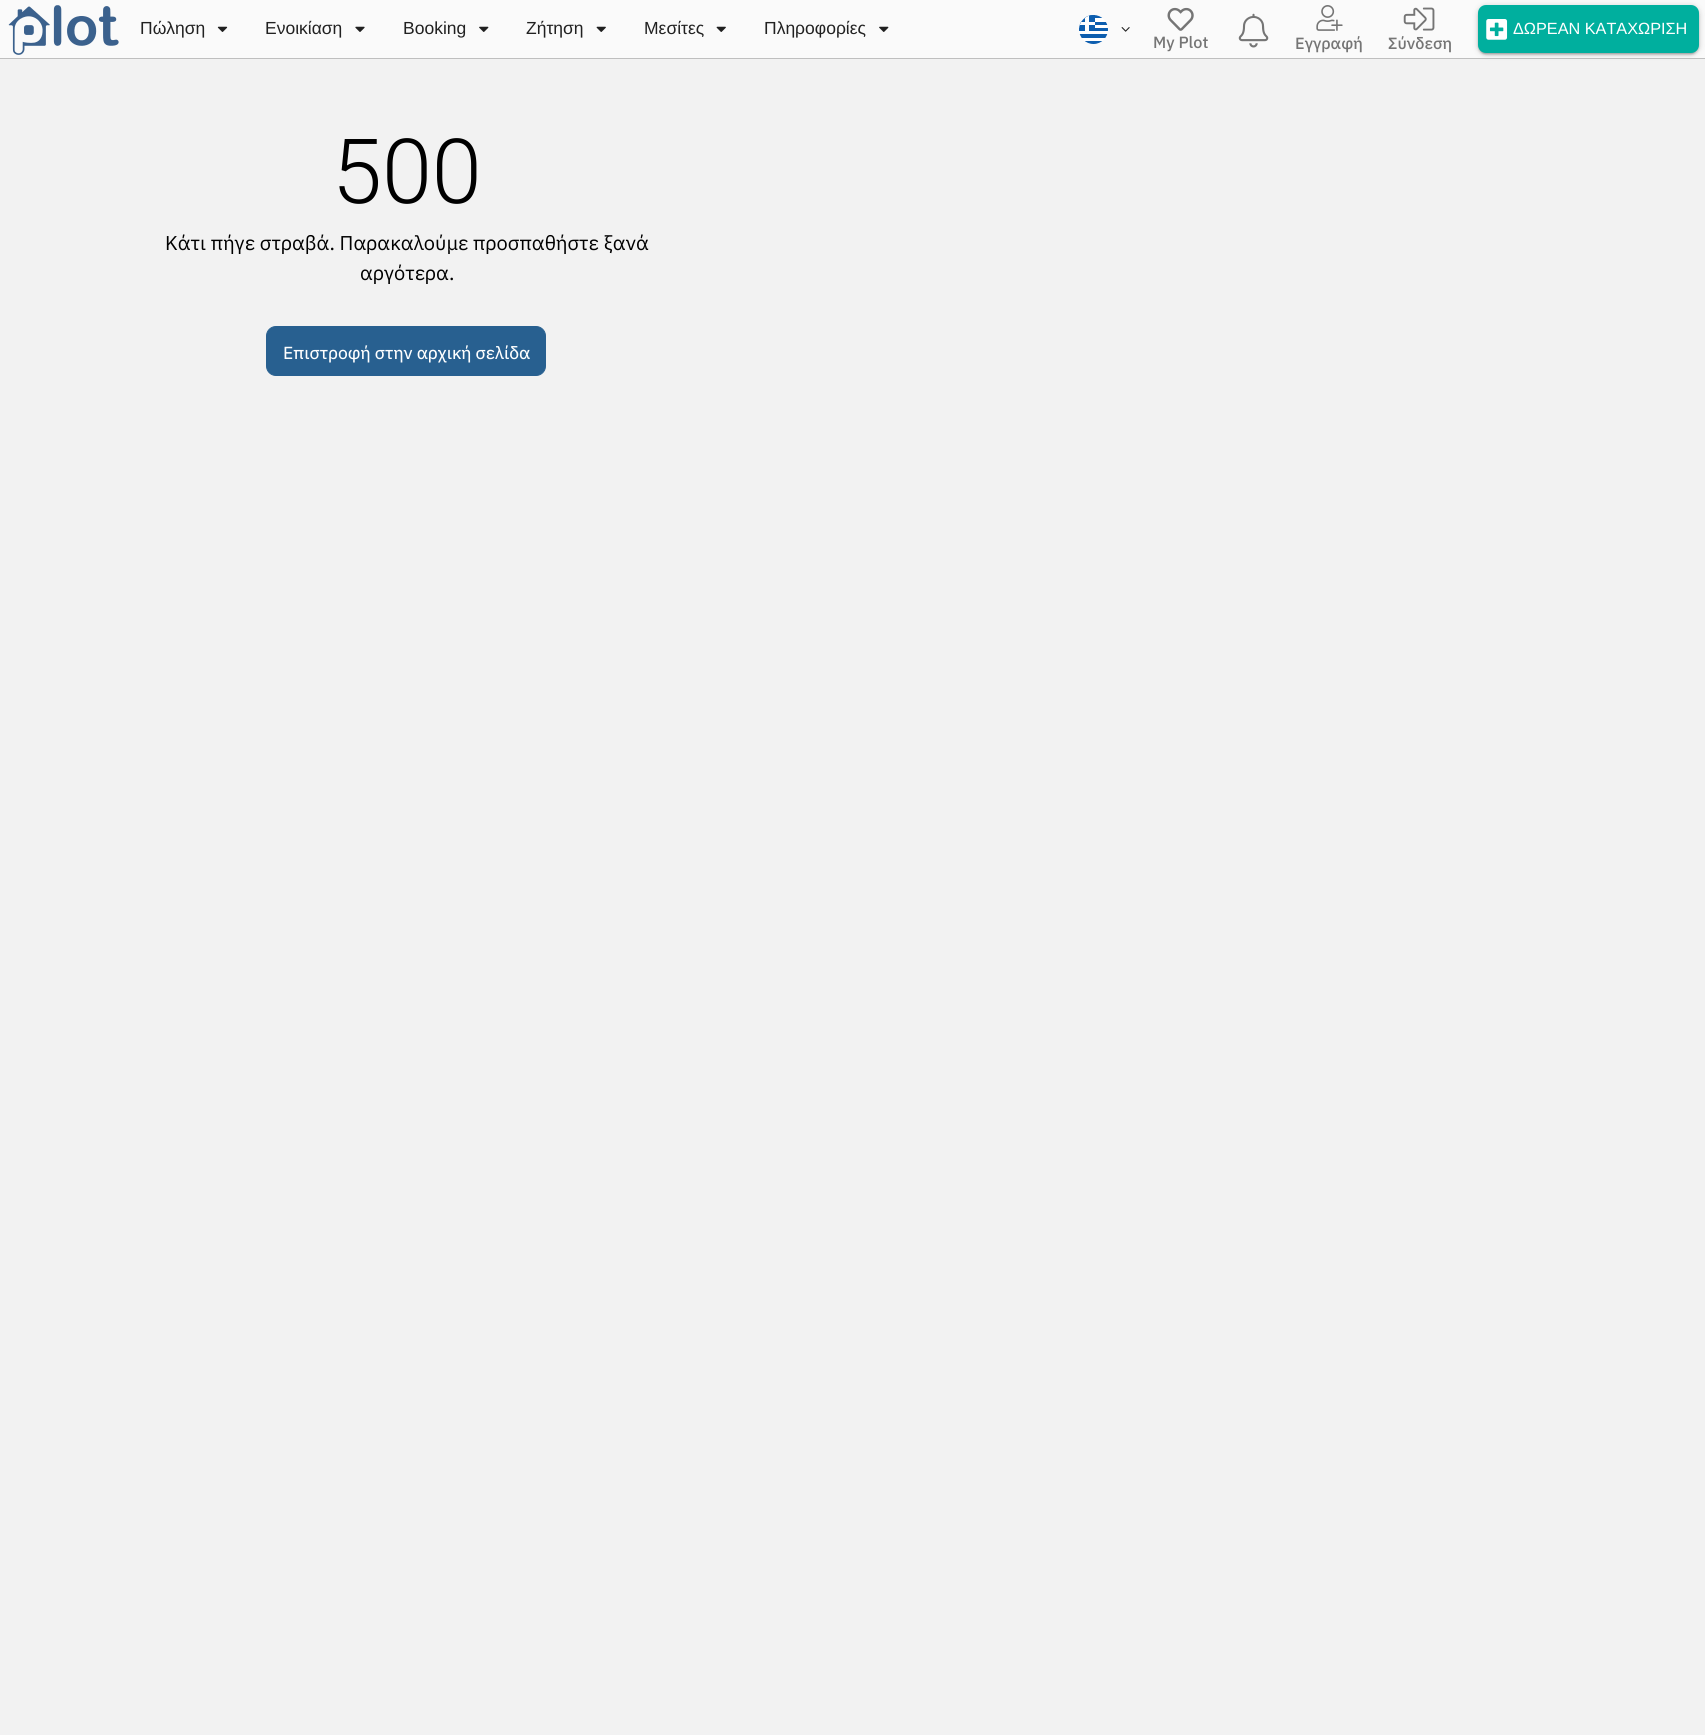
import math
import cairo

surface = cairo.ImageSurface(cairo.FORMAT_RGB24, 1705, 1735)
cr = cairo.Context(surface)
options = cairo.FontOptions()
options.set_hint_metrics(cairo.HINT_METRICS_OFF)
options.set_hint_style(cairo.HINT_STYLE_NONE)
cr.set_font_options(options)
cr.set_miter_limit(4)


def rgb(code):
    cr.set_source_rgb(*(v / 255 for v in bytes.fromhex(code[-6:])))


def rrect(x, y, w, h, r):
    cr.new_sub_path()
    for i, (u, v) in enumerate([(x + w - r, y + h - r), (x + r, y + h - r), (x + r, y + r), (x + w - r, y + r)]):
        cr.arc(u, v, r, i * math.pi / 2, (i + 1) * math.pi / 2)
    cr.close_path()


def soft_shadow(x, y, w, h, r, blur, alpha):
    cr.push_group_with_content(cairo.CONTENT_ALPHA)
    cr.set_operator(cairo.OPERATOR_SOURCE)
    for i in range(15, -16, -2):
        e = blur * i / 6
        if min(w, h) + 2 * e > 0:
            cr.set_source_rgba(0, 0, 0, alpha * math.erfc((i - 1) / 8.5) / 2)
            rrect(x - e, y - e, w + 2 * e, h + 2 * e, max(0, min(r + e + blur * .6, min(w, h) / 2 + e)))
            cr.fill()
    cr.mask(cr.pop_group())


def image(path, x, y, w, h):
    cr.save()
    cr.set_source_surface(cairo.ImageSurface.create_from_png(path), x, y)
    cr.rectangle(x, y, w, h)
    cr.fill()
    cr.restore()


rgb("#f2f2f2")
cr.paint()
rgb("#fafafa")
cr.rectangle(0, 0, 1705, 58)
cr.fill()
rgb("#bfbfbf")
cr.rectangle(0, 58, 1705, 1)
cr.fill()
image("img/1.png", 8, 5, 111, 50)
image("img/2.png", 217, 26, 11, 6)
image("img/3.png", 355, 26, 10, 6)
image("img/4.png", 479, 26, 10, 6)
image("img/5.png", 596, 26, 10, 6)
image("img/5.png", 716, 26, 10, 6)
image("img/4.png", 879, 26, 10, 6)
image("img/6.png", 1079, 15, 29, 29)
image("img/7.png", 1121, 27, 9, 5)
image("img/8.png", 1238, 13, 31, 35)
rgb("#000000")
soft_shadow(1480, 11, 216, 43, 5, 0.5, 0.12)
soft_shadow(1478, 8, 221, 47, 8, 1, 0.14)
soft_shadow(1478, 6, 221, 48, 8, 3, 0.2)
rgb("#00af9e")
rrect(1478, 5, 221, 48, 8)
cr.fill()
image("img/9.png", 1486, 19, 22, 21)
image("img/10.png", 1167, 7, 27, 24)
image("img/11.png", 1316, 5, 27, 26)
image("img/12.png", 1403, 7, 32, 24)
rgb("#286090")
rrect(266.5, 326.5, 279, 49, 9.5)
cr.fill_preserve()
cr.set_line_width(1)
cr.stroke()
cr.select_font_face("Liberation Sans")
cr.set_font_size(17.5)
rgb("#212121")
for x, y, s in [
    (140, 34, "Πώληση"),
    (265, 34, "Ενοικίαση"),
    (403, 34, "Booking"),
    (526, 34, "Ζήτηση"),
    (644, 34, "Μεσίτες"),
    (764, 34, "Πληροφορίες"),
]:
    cr.move_to(x, y)
    cr.show_text(s)
cr.set_font_size(16.25)
rgb("#ffffff")
cr.move_to(1513, 34)
cr.show_text("ΔΩΡΕΑΝ ΚΑΤΑΧΩΡΙΣΗ")
cr.select_font_face("IBM Plex Sans Medium")
rgb("#757575")
for x, y, s in [
    (1153, 48, "My Plot"),
    (1295, 49, "Εγγραφή"),
    (1388, 49, "Σύνδεση"),
]:
    cr.move_to(x, y)
    cr.show_text(s)
cr.select_font_face("Roboto Light")
cr.set_font_size(90)
rgb("#000000")
cr.move_to(332, 203)
cr.show_text("500")
cr.select_font_face("IBM Plex Sans")
cr.set_font_size(20)
cr.move_to(165, 250)
cr.show_text("Κάτι πήγε στραβά. Παρακαλούμε προσπαθήστε ξανά")
cr.move_to(360, 280)
cr.show_text("αργότερα.")
cr.select_font_face("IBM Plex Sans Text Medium")
cr.set_font_size(17.5)
rgb("#ffffff")
cr.move_to(283, 359)
cr.show_text("Επιστροφή στην αρχική σελίδα")
surface.write_to_png("page.png")
